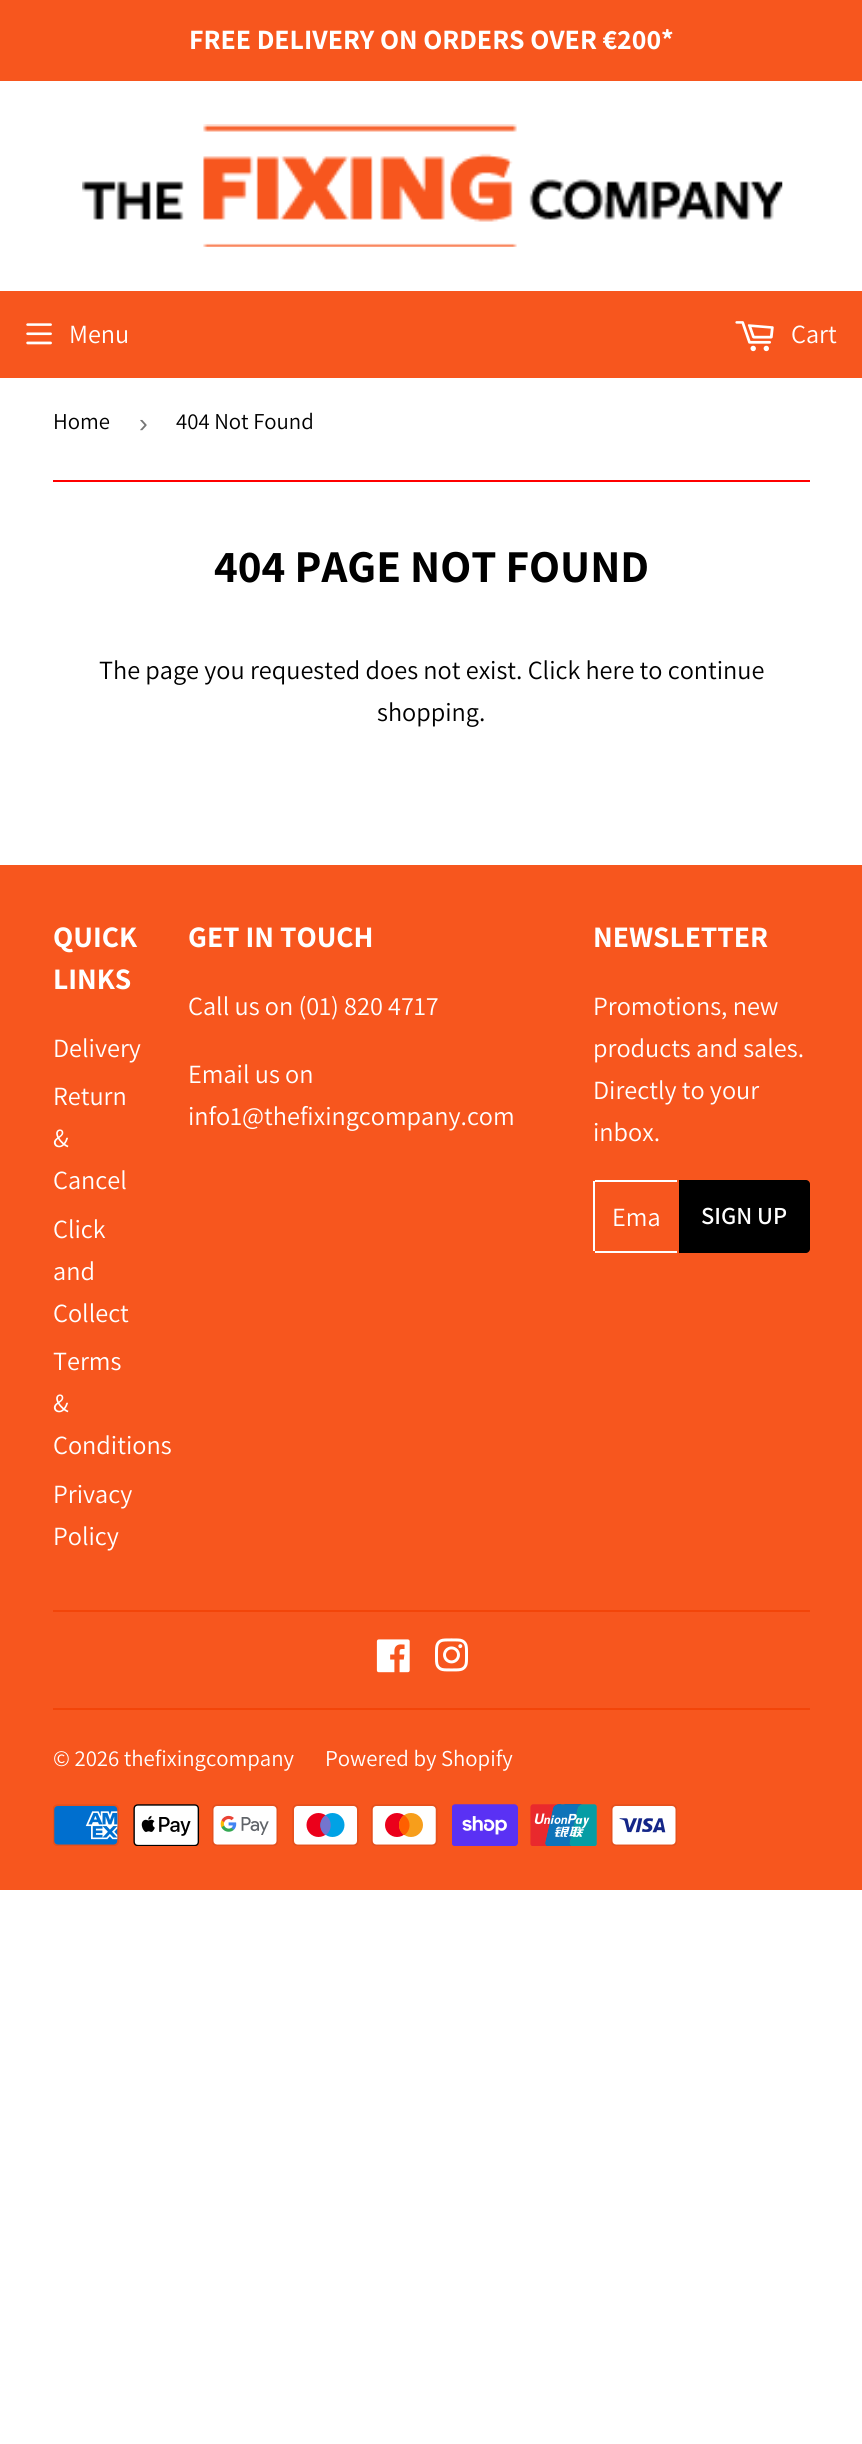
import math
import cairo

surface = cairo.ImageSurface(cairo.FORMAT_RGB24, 862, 2444)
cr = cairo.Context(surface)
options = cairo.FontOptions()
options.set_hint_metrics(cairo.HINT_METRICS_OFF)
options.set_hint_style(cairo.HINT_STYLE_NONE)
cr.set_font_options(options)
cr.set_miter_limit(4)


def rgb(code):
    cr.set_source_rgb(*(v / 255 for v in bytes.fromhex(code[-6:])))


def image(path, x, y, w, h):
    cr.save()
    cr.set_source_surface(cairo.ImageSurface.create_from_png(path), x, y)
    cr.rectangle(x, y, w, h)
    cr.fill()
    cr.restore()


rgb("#ffffff")
cr.paint()
rgb("#f7561e")
cr.rectangle(0, 0, 862, 81)
cr.fill()
image("img/1.png", 82, 124, 701, 123)
cr.rectangle(0, 291, 862, 87)
cr.fill()
image("img/2.png", 26, 323, 26, 22)
image("img/3.png", 735, 321, 39, 31)
for x, y, w, h, color in [
    (53, 480, 757, 2, "#ff0000"),
    (0, 865, 862, 1025, "#f7561e"),
    (595, 1180, 82, 2, "#ffffff"),
    (595, 1251, 82, 2, "#ffffff"),
    (593, 1181, 2, 70, "#ffffff"),
]:
    rgb(color)
    cr.rectangle(x, y, w, h)
    cr.fill()
rgb("#000000")
cr.new_path()
cr.move_to(679, 1180)
cr.line_to(806, 1180)
cr.curve_to(808, 1180, 810, 1182, 810, 1184)
cr.line_to(810, 1249)
cr.curve_to(810, 1251, 808, 1253, 806, 1253)
cr.line_to(679, 1253)
cr.close_path()
cr.fill()
rgb("#f34509")
cr.rectangle(53, 1610, 757, 2)
cr.fill()
image("img/4.png", 376, 1639, 34, 34)
image("img/5.png", 435, 1638, 33, 34)
cr.rectangle(53, 1708, 757, 2)
cr.fill()
image("img/6.png", 53, 1804, 66, 42)
image("img/7.png", 133, 1804, 67, 42)
image("img/8.png", 212, 1804, 66, 42)
image("img/9.png", 292, 1804, 67, 42)
image("img/10.png", 371, 1804, 67, 42)
image("img/11.png", 452, 1804, 66, 42)
image("img/12.png", 530, 1804, 67, 42)
image("img/13.png", 611, 1804, 66, 42)
cr.select_font_face("Assistant", cairo.FONT_SLANT_NORMAL, cairo.FONT_WEIGHT_BOLD)
cr.set_font_size(28)
rgb("#ffffff")
cr.move_to(189, 49)
cr.show_text("FREE DELIVERY ON ORDERS OVER €200*")
cr.select_font_face("Assistant")
cr.set_font_size(26.25)
cr.move_to(69, 343)
cr.show_text("Menu")
cr.move_to(791, 343)
cr.show_text("Cart")
cr.set_font_size(22.75)
rgb("#000000")
cr.move_to(53, 429)
cr.show_text("Home")
cr.select_font_face("Liberation Sans")
cr.set_font_size(26.25)
rgb("#767676")
cr.move_to(139, 432)
cr.show_text("›")
cr.select_font_face("Assistant")
cr.set_font_size(22.75)
rgb("#000000")
cr.move_to(176, 429)
cr.show_text("404 Not Found")
cr.select_font_face("Assistant", cairo.FONT_SLANT_NORMAL, cairo.FONT_WEIGHT_BOLD)
cr.set_font_size(45.5)
cr.move_to(214, 582)
cr.show_text("404 PAGE NOT FOUND")
cr.select_font_face("Assistant")
cr.set_font_size(26.25)
cr.move_to(99, 679)
cr.show_text("The page you requested does not exist. Click here to continue")
cr.move_to(377, 721)
cr.show_text("shopping.")
cr.select_font_face("Assistant", cairo.FONT_SLANT_NORMAL, cairo.FONT_WEIGHT_BOLD)
cr.set_font_size(29.75)
rgb("#ffffff")
cr.move_to(53, 947)
cr.show_text("QUICK")
cr.move_to(53, 989)
cr.show_text("LINKS")
cr.select_font_face("Assistant")
cr.set_font_size(26.25)
for x, y, s in [
    (53, 1057, "Delivery"),
    (53, 1105, "Return"),
    (53, 1147, "&"),
    (53, 1189, "Cancel"),
    (53, 1238, "Click"),
    (53, 1280, "and"),
    (53, 1322, "Collect"),
    (53, 1370, "Terms"),
    (53, 1412, "&"),
    (53, 1454, "Conditions"),
    (53, 1503, "Privacy"),
    (53, 1545, "Policy"),
]:
    cr.move_to(x, y)
    cr.show_text(s)
cr.select_font_face("Assistant", cairo.FONT_SLANT_NORMAL, cairo.FONT_WEIGHT_BOLD)
cr.set_font_size(29.75)
cr.move_to(188, 947)
cr.show_text("GET IN TOUCH")
cr.select_font_face("Assistant")
cr.set_font_size(26.25)
for x, y, s in [
    (188, 1015, "Call us on (01) 820 4717"),
    (188, 1083, "Email us on"),
    (188, 1125, "info1@thefixingcompany.com"),
]:
    cr.move_to(x, y)
    cr.show_text(s)
cr.select_font_face("Assistant", cairo.FONT_SLANT_NORMAL, cairo.FONT_WEIGHT_BOLD)
cr.set_font_size(29.75)
cr.move_to(593, 947)
cr.show_text("NEWSLETTER")
cr.select_font_face("Assistant")
cr.set_font_size(26.25)
for x, y, s in [
    (593, 1015, "Promotions, new"),
    (593, 1057, "products and sales."),
    (593, 1099, "Directly to your"),
    (593, 1141, "inbox."),
    (612, 1226, "Ema"),
]:
    cr.move_to(x, y)
    cr.show_text(s)
cr.select_font_face("Assistant SemiBold")
cr.set_font_size(24.5)
cr.move_to(701, 1224)
cr.show_text("SIGN UP")
cr.select_font_face("Assistant")
cr.set_font_size(22.75)
cr.move_to(53, 1766)
cr.show_text("© 2026 thefixingcompany")
cr.move_to(325, 1766)
cr.show_text("Powered by Shopify")
surface.write_to_png("page.png")
